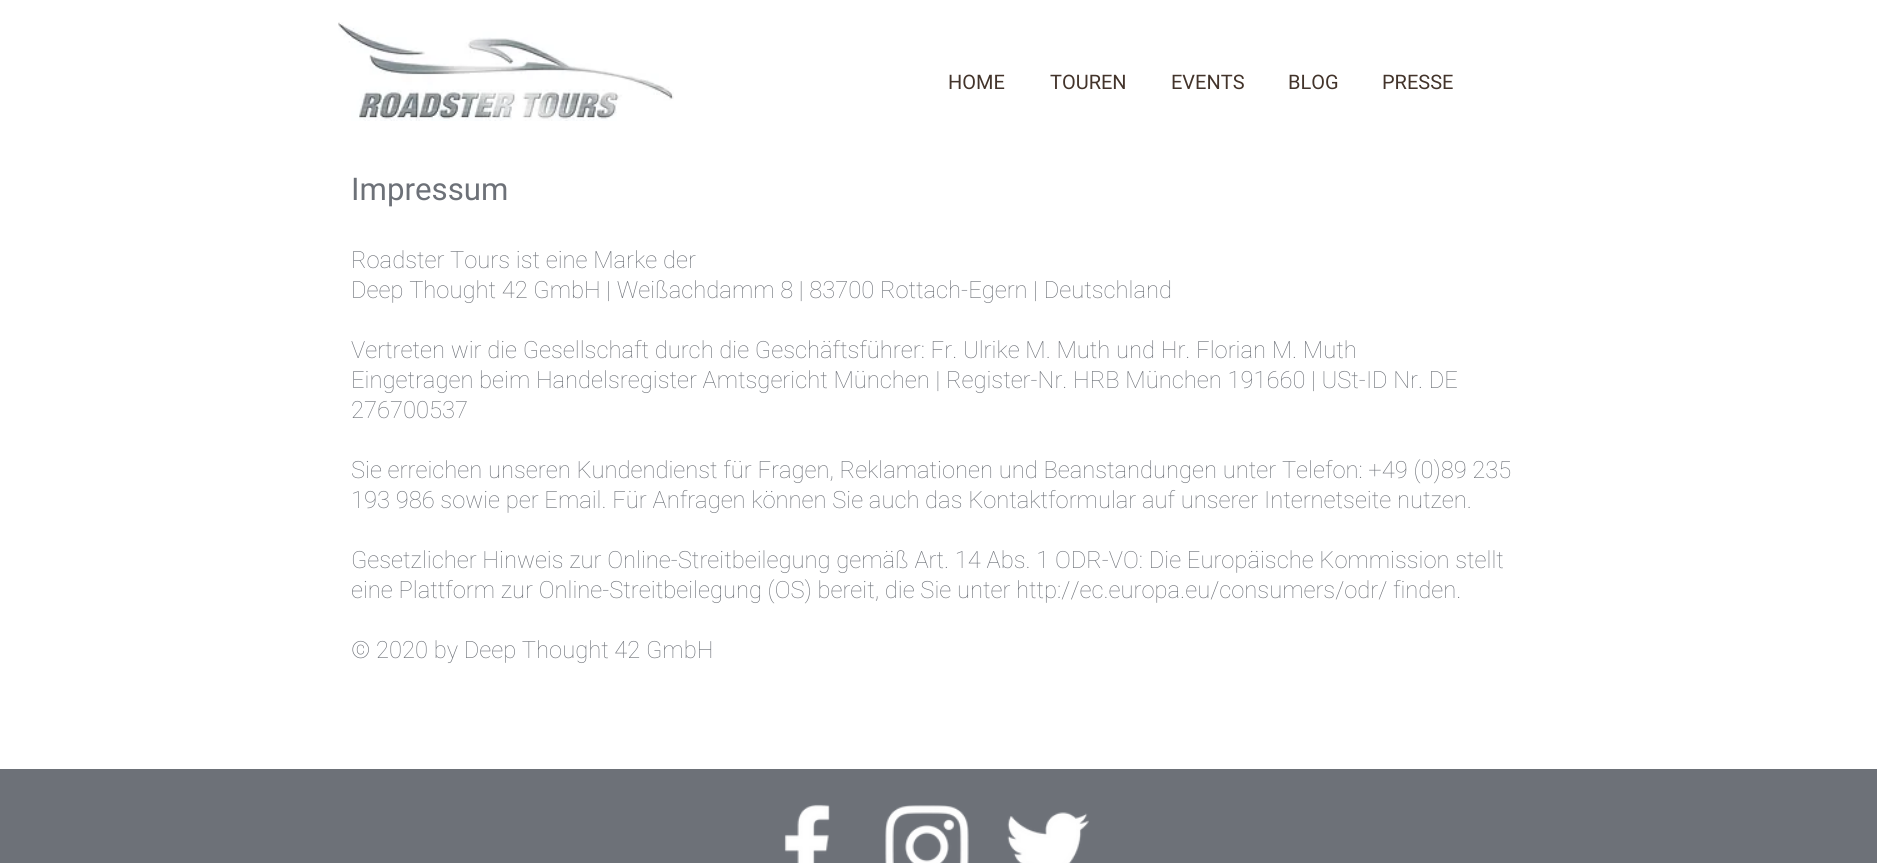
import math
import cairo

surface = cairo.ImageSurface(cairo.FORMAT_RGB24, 1877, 863)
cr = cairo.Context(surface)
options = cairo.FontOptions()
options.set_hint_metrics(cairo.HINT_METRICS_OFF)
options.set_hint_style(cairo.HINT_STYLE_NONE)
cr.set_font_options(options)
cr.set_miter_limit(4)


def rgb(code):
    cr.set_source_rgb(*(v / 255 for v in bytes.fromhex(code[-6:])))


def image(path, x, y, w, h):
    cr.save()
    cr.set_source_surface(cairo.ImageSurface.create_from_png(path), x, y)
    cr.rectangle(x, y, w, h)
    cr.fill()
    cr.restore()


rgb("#ffffff")
cr.paint()
image("img/1.png", 338, 22, 336, 99)
rgb("#6d7178")
cr.rectangle(0, 769, 1877, 94)
cr.fill()
image("img/2.png", 784, 804, 46, 59)
image("img/3.png", 885, 805, 84, 58)
image("img/4.png", 1007, 812, 82, 51)
cr.select_font_face("Roboto")
cr.set_font_size(20)
rgb("#43342b")
for x, y, s in [
    (948, 89, "HOME"),
    (1050, 89, "TOUREN"),
    (1171, 89, "EVENTS"),
    (1288, 89, "BLOG"),
    (1382, 89, "PRESSE"),
]:
    cr.move_to(x, y)
    cr.show_text(s)
cr.set_font_size(31.25)
rgb("#6d7178")
cr.move_to(351, 200)
cr.show_text("Impressum")
cr.select_font_face("Roboto Thin")
cr.set_font_size(23.75)
for x, y, s in [
    (351, 268, "Roadster Tours ist eine Marke der"),
    (351, 298, "Deep Thought 42 GmbH | Weißachdamm 8 | 83700 Rottach-Egern | Deutschland"),
    (351, 358, "Vertreten wir die Gesellschaft durch die Geschäftsführer: Fr. Ulrike M. Muth und Hr. Florian M. Muth"),
    (351, 388, "Eingetragen beim Handelsregister Amtsgericht München | Register-Nr. HRB München 191660 | USt-ID Nr. DE"),
    (351, 418, "276700537"),
    (351, 478, "Sie erreichen unseren Kundendienst für Fragen, Reklamationen und Beanstandungen unter Telefon: +49 (0)89 235"),
    (351, 508, "193 986 sowie per Email. Für Anfragen können Sie auch das Kontaktformular auf unserer Internetseite nutzen."),
    (351, 568, "Gesetzlicher Hinweis zur Online-Streitbeilegung gemäß Art. 14 Abs. 1 ODR-VO: Die Europäische Kommission stellt"),
    (351, 598, "eine Plattform zur Online-Streitbeilegung (OS) bereit, die Sie unter http://ec.europa.eu/consumers/odr/ finden."),
    (351, 658, "© 2020 by Deep Thought 42 GmbH"),
]:
    cr.move_to(x, y)
    cr.show_text(s)
surface.write_to_png("page.png")
